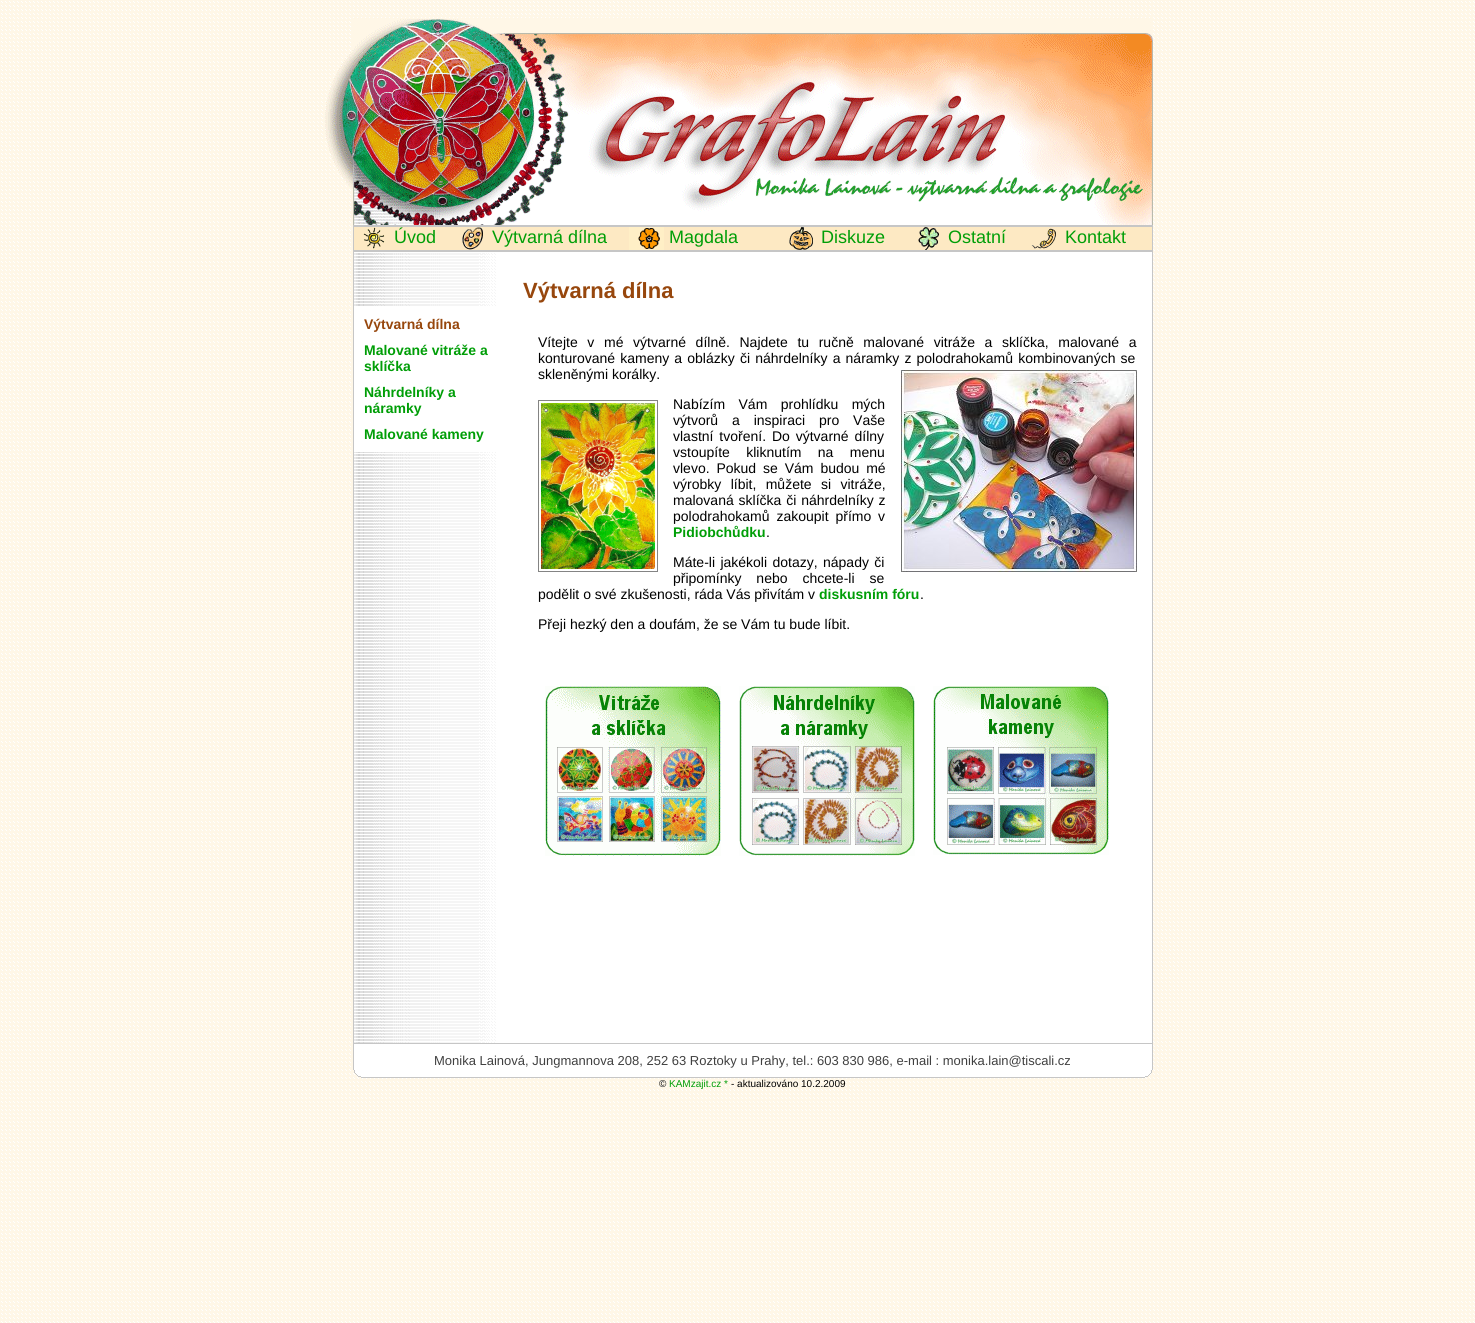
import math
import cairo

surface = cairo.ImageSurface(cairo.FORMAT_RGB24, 1475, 1323)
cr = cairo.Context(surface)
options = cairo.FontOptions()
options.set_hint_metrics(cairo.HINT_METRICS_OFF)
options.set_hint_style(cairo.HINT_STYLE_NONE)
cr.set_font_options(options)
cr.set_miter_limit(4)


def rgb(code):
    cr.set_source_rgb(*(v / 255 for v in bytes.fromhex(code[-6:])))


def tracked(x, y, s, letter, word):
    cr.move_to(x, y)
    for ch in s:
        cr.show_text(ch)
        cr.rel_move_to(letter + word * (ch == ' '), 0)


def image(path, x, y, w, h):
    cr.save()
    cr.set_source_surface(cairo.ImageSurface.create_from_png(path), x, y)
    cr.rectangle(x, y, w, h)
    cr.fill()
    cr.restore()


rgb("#ffffff")
cr.paint()
image("img/1.png", 0, 0, 1475, 1323)
image("img/2.png", 324, 50, 29, 139)
image("img/3.png", 353, 18, 800, 207)
for x, y, w, h, color in [
    (354, 227, 798, 23, "#fde9c3"),
    (353, 225, 800, 2, "#c6c6c6"),
    (1152, 225, 1, 818, "#c6c6c6"),
    (353, 250, 800, 2, "#c6c6c6"),
    (353, 225, 1, 818, "#c6c6c6"),
]:
    rgb(color)
    cr.rectangle(x, y, w, h)
    cr.fill()
image("img/4.png", 363, 227, 22, 22)
image("img/5.png", 462, 227, 22, 23)
image("img/6.png", 629, 227, 35, 23)
image("img/7.png", 789, 227, 25, 23)
image("img/8.png", 918, 227, 22, 23)
image("img/9.png", 1031, 228, 25, 21)
rgb("#ffffff")
cr.rectangle(354, 252, 798, 791)
cr.fill()
image("img/10.png", 354, 253, 142, 790)
cr.rectangle(354, 307, 142, 140)
cr.fill()
cr.rectangle(354, 448, 142, 4)
cr.fill()
image("img/11.png", 901, 370, 236, 202)
image("img/12.png", 538, 400, 120, 172)
image("img/13.png", 545, 686, 176, 170)
image("img/14.png", 739, 686, 176, 170)
image("img/15.png", 933, 686, 176, 169)
for x, y, w, h, color in [
    (354, 1044, 798, 24, "#ffffff"),
    (353, 1043, 800, 1, "#c6c6c6"),
    (1152, 1043, 1, 25, "#c6c6c6"),
    (353, 1043, 1, 25, "#c6c6c6"),
]:
    rgb(color)
    cr.rectangle(x, y, w, h)
    cr.fill()
image("img/16.png", 353, 1068, 800, 10)
cr.select_font_face("Liberation Sans")
cr.set_font_size(18)
rgb("#009e07")
for x, y, s in [
    (394, 243, "Úvod"),
    (492, 243, "Výtvarná dílna"),
    (669, 243, "Magdala"),
    (821, 243, "Diskuze"),
    (948, 243, "Ostatní"),
    (1065, 243, "Kontakt"),
]:
    cr.move_to(x, y)
    cr.show_text(s)
cr.select_font_face("Liberation Sans", cairo.FONT_SLANT_NORMAL, cairo.FONT_WEIGHT_BOLD)
cr.set_font_size(14)
rgb("#97470d")
cr.move_to(364, 329)
cr.show_text("Výtvarná dílna")
rgb("#009e07")
for x, y, s in [
    (364, 355, "Malované vitráže a"),
    (364, 371, "sklíčka"),
    (364, 397, "Náhrdelníky a"),
    (364, 413, "náramky"),
    (364, 439, "Malované kameny"),
]:
    cr.move_to(x, y)
    cr.show_text(s)
cr.set_font_size(22)
rgb("#97470d")
cr.move_to(523, 298)
cr.show_text("Výtvarná dílna")
cr.select_font_face("Liberation Sans")
cr.set_font_size(14)
rgb("#000000")
tracked(538, 347, "Vítejte v mé výtvarné dílně. Najdete tu ručně malované vitráže a sklíčka, malované a", 0, 5.75)
tracked(538, 363, "konturované kameny a oblázky či náhrdelníky a náramky z polodrahokamů kombinovaných se", 0, 1.25)
cr.move_to(538, 379)
cr.show_text("skleněnými korálky.")
tracked(673, 409, "Nabízím Vám prohlídku mých", 0, 9.5)
tracked(673, 425, "výtvorů a inspiraci pro Vaše", 0, 10)
tracked(673, 441, "vlastní tvoření. Do výtvarné dílny", 0, 2)
tracked(673, 457, "vstoupíte kliknutím na menu", 0, 12.5)
tracked(673, 473, "vlevo. Pokud se Vám budou mé", 0, 3)
tracked(673, 489, "výrobky líbit, můžete si vitráže,", 0, 5.5)
tracked(673, 505, "malovaná sklíčka či náhrdelníky z", 0, 1)
tracked(673, 521, "polodrahokamů zakoupit přímo v", 0, 3)
cr.select_font_face("Liberation Sans", cairo.FONT_SLANT_NORMAL, cairo.FONT_WEIGHT_BOLD)
rgb("#009e07")
cr.move_to(673, 537)
cr.show_text("Pidiobchůdku")
cr.select_font_face("Liberation Sans")
rgb("#000000")
cr.move_to(766, 537)
cr.show_text(".")
tracked(673, 567, "Máte-li jakékoli dotazy, nápady či", 0, 1.5)
tracked(673, 583, "připomínky nebo chcete-li se", 0, 11)
cr.move_to(538, 599)
cr.show_text("podělit o své zkušenosti, ráda Vás přivítám v")
cr.select_font_face("Liberation Sans", cairo.FONT_SLANT_NORMAL, cairo.FONT_WEIGHT_BOLD)
rgb("#009e07")
cr.move_to(819, 599)
cr.show_text("diskusním fóru")
cr.select_font_face("Liberation Sans")
rgb("#000000")
cr.move_to(920, 599)
cr.show_text(".")
cr.move_to(538, 629)
cr.show_text("Přeji hezký den a doufám, že se Vám tu bude líbit.")
cr.set_font_size(13)
rgb("#404040")
cr.move_to(434, 1065)
cr.show_text("Monika Lainová, Jungmannova 208, 252 63 Roztoky u Prahy, tel.: 603 830 986, e-mail : monika.lain@tiscali.cz")
cr.set_font_size(10)
rgb("#000000")
cr.move_to(659, 1087)
cr.show_text("©")
rgb("#009e07")
cr.move_to(669, 1087)
cr.show_text("KAMzajit.cz *")
rgb("#000000")
cr.move_to(731, 1087)
cr.show_text("- aktualizováno 10.2.2009")
surface.write_to_png("page.png")
